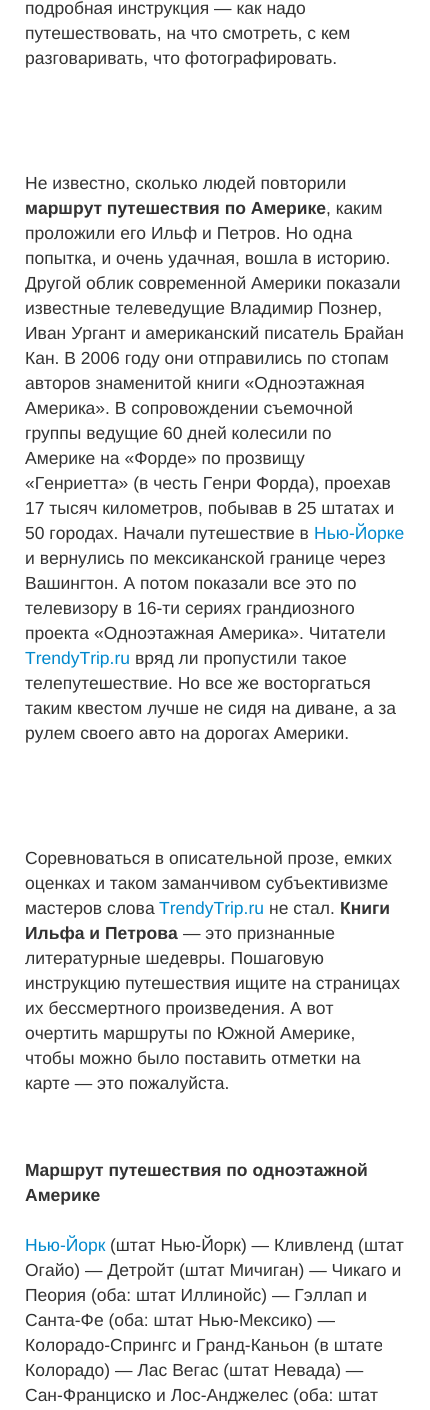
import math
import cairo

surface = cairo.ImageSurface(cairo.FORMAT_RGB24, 430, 1410)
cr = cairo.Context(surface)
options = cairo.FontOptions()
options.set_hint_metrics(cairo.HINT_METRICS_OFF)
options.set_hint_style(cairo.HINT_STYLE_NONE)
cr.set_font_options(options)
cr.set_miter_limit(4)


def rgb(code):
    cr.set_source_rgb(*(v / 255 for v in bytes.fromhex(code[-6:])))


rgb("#ffffff")
cr.paint()
cr.select_font_face("Liberation Sans")
cr.set_font_size(17.5)
rgb("#333333")
for x, y, s in [
    (25, 14, "подробная инструкция — как надо"),
    (25, 39, "путешествовать, на что смотреть, с кем"),
    (25, 64, "разговаривать, что фотографировать."),
    (25, 189, "Не известно, сколько людей повторили"),
]:
    cr.move_to(x, y)
    cr.show_text(s)
cr.select_font_face("Liberation Sans", cairo.FONT_SLANT_NORMAL, cairo.FONT_WEIGHT_BOLD)
cr.move_to(25, 214)
cr.show_text("маршрут путешествия по Америке")
cr.select_font_face("Liberation Sans")
for x, y, s in [
    (326, 214, ", каким"),
    (25, 239, "проложили его Ильф и Петров. Но одна"),
    (25, 264, "попытка, и очень удачная, вошла в историю."),
    (25, 289, "Другой облик современной Америки показали"),
    (25, 314, "известные телеведущие Владимир Познер,"),
    (25, 339, "Иван Ургант и американский писатель Брайан"),
    (25, 364, "Кан. В 2006 году они отправились по стопам"),
    (25, 389, "авторов знаменитой книги «Одноэтажная"),
    (25, 414, "Америка». В сопровождении съемочной"),
    (25, 439, "группы ведущие 60 дней колесили по"),
    (25, 464, "Америке на «Форде» по прозвищу"),
    (25, 489, "«Генриетта» (в честь Генри Форда), проехав"),
    (25, 514, "17 тысяч километров, побывав в 25 штатах и"),
    (25, 539, "50 городах. Начали путешествие в"),
]:
    cr.move_to(x, y)
    cr.show_text(s)
rgb("#0088cc")
cr.move_to(314, 539)
cr.show_text("Нью-Йорке")
rgb("#333333")
for x, y, s in [
    (25, 564, "и вернулись по мексиканской границе через"),
    (25, 589, "Вашингтон. А потом показали все это по"),
    (25, 614, "телевизору в 16-ти сериях грандиозного"),
    (25, 639, "проекта «Одноэтажная Америка». Читатели"),
]:
    cr.move_to(x, y)
    cr.show_text(s)
rgb("#0088cc")
cr.move_to(25, 664)
cr.show_text("TrendyTrip.ru")
rgb("#333333")
for x, y, s in [
    (135, 664, "вряд ли пропустили такое"),
    (25, 689, "телепутешествие. Но все же восторгаться"),
    (25, 714, "таким квестом лучше не сидя на диване, а за"),
    (25, 739, "рулем своего авто на дорогах Америки."),
    (25, 864, "Соревноваться в описательной прозе, емких"),
    (25, 889, "оценках и таком заманчивом субъективизме"),
    (25, 914, "мастеров слова"),
]:
    cr.move_to(x, y)
    cr.show_text(s)
rgb("#0088cc")
cr.move_to(159, 914)
cr.show_text("TrendyTrip.ru")
rgb("#333333")
cr.move_to(269, 914)
cr.show_text("не стал.")
cr.select_font_face("Liberation Sans", cairo.FONT_SLANT_NORMAL, cairo.FONT_WEIGHT_BOLD)
cr.move_to(340, 914)
cr.show_text("Книги")
cr.move_to(25, 939)
cr.show_text("Ильфа и Петрова")
cr.select_font_face("Liberation Sans")
for x, y, s in [
    (183, 939, "— это признанные"),
    (25, 964, "литературные шедевры. Пошаговую"),
    (25, 989, "инструкцию путешествия ищите на страницах"),
    (25, 1014, "их бессмертного произведения. А вот"),
    (25, 1039, "очертить маршруты по Южной Америке,"),
    (25, 1064, "чтобы можно было поставить отметки на"),
    (25, 1089, "карте — это пожалуйста."),
]:
    cr.move_to(x, y)
    cr.show_text(s)
cr.select_font_face("Liberation Sans", cairo.FONT_SLANT_NORMAL, cairo.FONT_WEIGHT_BOLD)
cr.move_to(25, 1176)
cr.show_text("Маршрут путешествия по одноэтажной")
cr.move_to(25, 1201)
cr.show_text("Америке")
cr.select_font_face("Liberation Sans")
rgb("#0088cc")
cr.move_to(25, 1251)
cr.show_text("Нью-Йорк")
rgb("#333333")
for x, y, s in [
    (110, 1251, "(штат Нью-Йорк) — Кливленд (штат"),
    (25, 1276, "Огайо) — Детройт (штат Мичиган) — Чикаго и"),
    (25, 1301, "Пеория (оба: штат Иллинойс) — Гэллап и"),
    (25, 1326, "Санта-Фе (оба: штат Нью-Мексико) —"),
    (25, 1351, "Колорадо-Спрингс и Гранд-Каньон (в штате"),
    (25, 1376, "Колорадо) — Лас Вегас (штат Невада) —"),
    (25, 1401, "Сан-Франциско и Лос-Анджелес (оба: штат"),
]:
    cr.move_to(x, y)
    cr.show_text(s)
surface.write_to_png("page.png")
